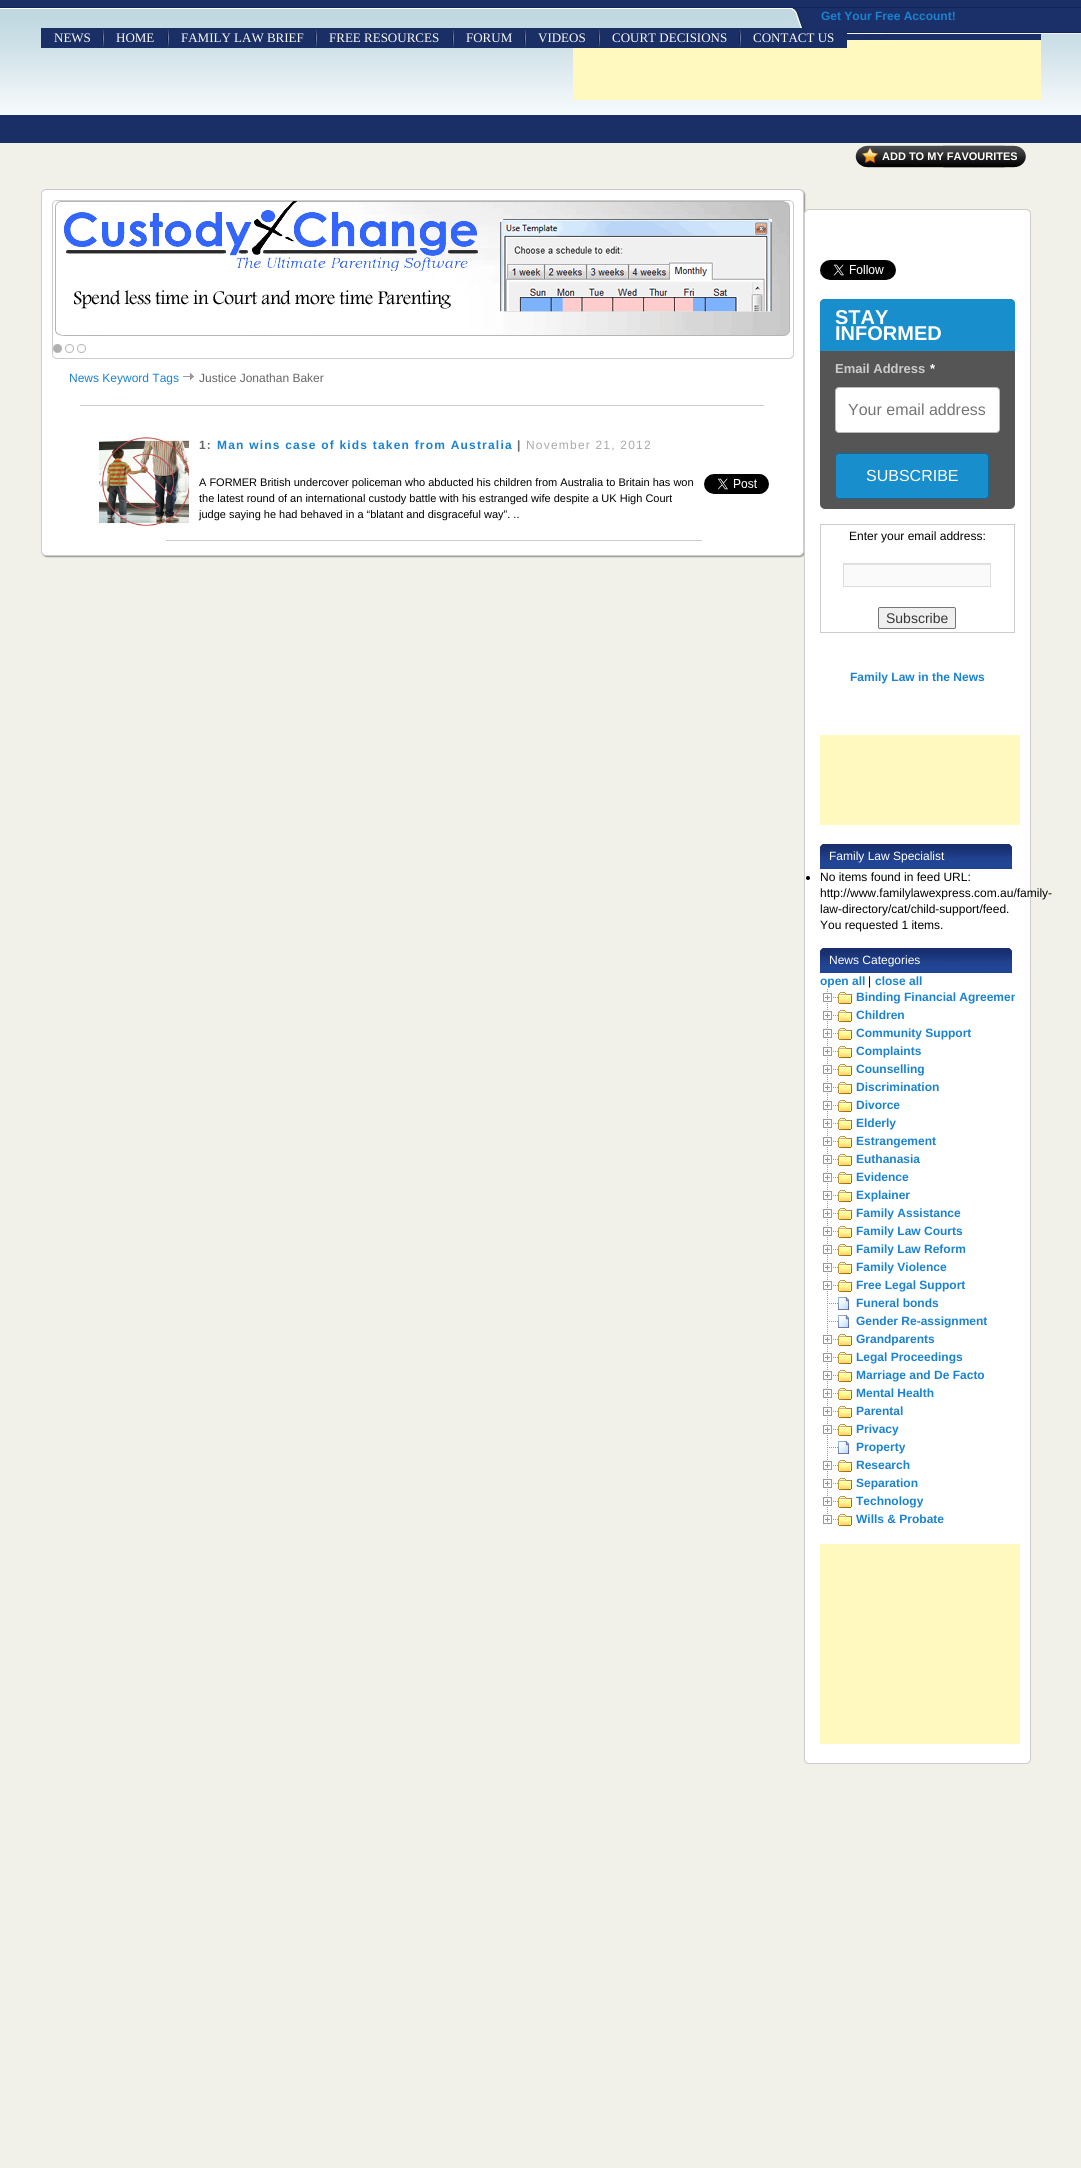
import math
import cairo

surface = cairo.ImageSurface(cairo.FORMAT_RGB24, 1081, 2168)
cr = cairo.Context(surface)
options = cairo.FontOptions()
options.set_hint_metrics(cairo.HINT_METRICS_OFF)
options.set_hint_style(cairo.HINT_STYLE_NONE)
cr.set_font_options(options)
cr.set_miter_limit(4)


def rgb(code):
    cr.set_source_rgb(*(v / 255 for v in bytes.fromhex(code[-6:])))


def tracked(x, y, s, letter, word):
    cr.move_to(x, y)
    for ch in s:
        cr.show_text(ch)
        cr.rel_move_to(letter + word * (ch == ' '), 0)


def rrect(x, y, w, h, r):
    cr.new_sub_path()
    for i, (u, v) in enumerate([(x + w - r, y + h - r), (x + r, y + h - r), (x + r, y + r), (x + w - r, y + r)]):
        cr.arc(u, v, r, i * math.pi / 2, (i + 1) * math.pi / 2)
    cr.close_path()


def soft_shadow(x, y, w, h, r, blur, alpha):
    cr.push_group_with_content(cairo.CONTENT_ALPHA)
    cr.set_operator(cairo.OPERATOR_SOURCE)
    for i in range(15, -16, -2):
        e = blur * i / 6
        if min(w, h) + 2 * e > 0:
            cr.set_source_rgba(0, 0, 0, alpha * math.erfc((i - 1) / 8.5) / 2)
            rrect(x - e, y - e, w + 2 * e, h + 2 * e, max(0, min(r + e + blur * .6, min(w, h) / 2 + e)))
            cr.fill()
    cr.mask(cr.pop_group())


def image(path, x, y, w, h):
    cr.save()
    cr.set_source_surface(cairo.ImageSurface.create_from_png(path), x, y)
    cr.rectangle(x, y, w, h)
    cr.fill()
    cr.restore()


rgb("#f1f1e9")
cr.paint()
image("img/1.png", 0, 0, 1081, 143)
rgb("#1b2f67")
cr.rectangle(41, 28, 1000, 20)
cr.fill()
image("img/2.png", 791, 8, 290, 26)
image("img/3.png", 102, 29, 2, 18)
image("img/3.png", 167, 29, 2, 18)
image("img/3.png", 315, 29, 2, 18)
image("img/3.png", 452, 29, 2, 18)
rgb("#fff9c0")
cr.rectangle(573, 40, 468, 60)
cr.fill()
rgb("#1b2f67")
cr.rectangle(573, 40, 167, 8)
cr.fill()
image("img/3.png", 524, 29, 2, 18)
image("img/3.png", 598, 29, 2, 18)
cr.rectangle(740, 28, 107, 20)
cr.fill()
image("img/3.png", 739, 29, 2, 18)
image("img/4.png", 855, 145, 171, 23)
rgb("#999999")
soft_shadow(42, 190, 763, 367, 5, 0.5, 1)
rgb("#ffffff")
rrect(41.5, 189.5, 762, 366, 4.5)
cr.fill_preserve()
rgb("#cccccc")
cr.set_line_width(1)
cr.stroke()
rrect(52.5, 200.5, 741, 158, 4.5)
cr.stroke()
image("img/5.png", 54, 201, 738, 135)
image("img/6.png", 53, 344, 9, 9)
image("img/7.png", 65, 344, 9, 9)
image("img/7.png", 77, 344, 9, 9)
image("img/8.png", 183, 373, 11, 7)
cr.rectangle(80, 405, 684, 1)
cr.fill()
image("img/9.png", 99, 437, 90, 89)
image("img/10.png", 704, 474, 65, 20)
cr.rectangle(166, 540, 536, 1)
cr.fill()
rgb("#ffffff")
rrect(804.5, 209.5, 226, 1554, 4.5)
cr.fill_preserve()
rgb("#cccccc")
cr.stroke()
image("img/11.png", 820, 260, 76, 20)
rgb("#555555")
rrect(820, 299, 195, 210, 5)
cr.fill()
rgb("#188ecd")
cr.new_path()
cr.move_to(825, 299)
cr.line_to(1010, 299)
cr.curve_to(1013, 299, 1015, 301, 1015, 304)
cr.line_to(1015, 351)
cr.line_to(820, 351)
cr.line_to(820, 304)
cr.curve_to(820, 301, 822, 299, 825, 299)
cr.close_path()
cr.fill()
rgb("#ffffff")
rrect(835.5, 387.5, 164, 45, 3.5)
cr.fill_preserve()
rgb("#bbbbbb")
cr.stroke()
rgb("#188ecd")
rrect(835.5, 453.5, 153, 45, 3.5)
cr.fill_preserve()
rgb("#106999")
cr.stroke()
cr.rectangle(820.5, 524.5, 194, 108)
rgb("#cccccc")
cr.stroke()
rgb("#fafafa")
cr.rectangle(844, 565, 146, 21)
cr.fill()
rgb("#e1e1e1")
cr.rectangle(844, 564, 146, 1)
cr.fill()
cr.rectangle(843.5, 563.5, 147, 23)
rgb("#dddddd")
cr.stroke()
rgb("#efefef")
rrect(878.5, 607.5, 77, 21, 1.5)
cr.fill_preserve()
rgb("#767676")
cr.stroke()
rgb("#fff9c0")
cr.rectangle(820, 735, 200, 90)
cr.fill()
image("img/12.png", 820, 844, 192, 25)
rgb("#000000")
cr.arc(808, 878, 2, 0, 2 * math.pi)
cr.fill()
image("img/12.png", 820, 948, 192, 25)
image("img/13.png", 823, 989, 15, 17)
image("img/14.png", 838, 992, 14, 12)
image("img/13.png", 823, 1007, 15, 17)
image("img/14.png", 838, 1010, 14, 12)
image("img/13.png", 823, 1025, 15, 17)
image("img/14.png", 838, 1028, 14, 12)
image("img/13.png", 823, 1043, 15, 17)
image("img/14.png", 838, 1046, 14, 12)
image("img/13.png", 823, 1061, 15, 17)
image("img/14.png", 838, 1064, 14, 12)
image("img/13.png", 823, 1079, 15, 17)
image("img/14.png", 838, 1082, 14, 12)
image("img/13.png", 823, 1097, 15, 17)
image("img/14.png", 838, 1100, 14, 12)
image("img/13.png", 823, 1115, 15, 17)
image("img/14.png", 838, 1118, 14, 12)
image("img/13.png", 823, 1133, 15, 17)
image("img/14.png", 838, 1136, 14, 12)
image("img/13.png", 823, 1151, 15, 17)
image("img/14.png", 838, 1154, 14, 12)
image("img/13.png", 823, 1169, 15, 17)
image("img/14.png", 838, 1172, 14, 12)
image("img/13.png", 823, 1187, 15, 17)
image("img/14.png", 838, 1190, 14, 12)
image("img/13.png", 823, 1205, 15, 17)
image("img/14.png", 838, 1208, 14, 12)
image("img/13.png", 823, 1223, 15, 17)
image("img/14.png", 838, 1226, 14, 12)
image("img/13.png", 823, 1241, 15, 17)
image("img/14.png", 838, 1244, 14, 12)
image("img/13.png", 823, 1259, 15, 17)
image("img/14.png", 838, 1262, 14, 12)
image("img/13.png", 823, 1277, 15, 17)
image("img/14.png", 838, 1280, 14, 12)
image("img/15.png", 827, 1295, 11, 17)
image("img/16.png", 838, 1297, 11, 13)
image("img/15.png", 827, 1313, 11, 17)
image("img/16.png", 838, 1315, 11, 13)
image("img/13.png", 823, 1331, 15, 17)
image("img/14.png", 838, 1334, 14, 12)
image("img/13.png", 823, 1349, 15, 17)
image("img/14.png", 838, 1352, 14, 12)
image("img/13.png", 823, 1367, 15, 17)
image("img/14.png", 838, 1370, 14, 12)
image("img/13.png", 823, 1385, 15, 17)
image("img/14.png", 838, 1388, 14, 12)
image("img/13.png", 823, 1403, 15, 17)
image("img/14.png", 838, 1406, 14, 12)
image("img/13.png", 823, 1421, 15, 17)
image("img/14.png", 838, 1424, 14, 12)
image("img/15.png", 827, 1439, 11, 17)
image("img/16.png", 838, 1441, 11, 13)
image("img/13.png", 823, 1457, 15, 17)
image("img/14.png", 838, 1460, 14, 12)
image("img/13.png", 823, 1475, 15, 17)
image("img/14.png", 838, 1478, 14, 12)
image("img/13.png", 823, 1493, 15, 17)
image("img/14.png", 838, 1496, 14, 12)
image("img/17.png", 823, 1511, 15, 13)
image("img/14.png", 838, 1514, 14, 12)
rgb("#fff9c0")
cr.rectangle(820, 1544, 200, 200)
cr.fill()
cr.select_font_face("Liberation Sans", cairo.FONT_SLANT_NORMAL, cairo.FONT_WEIGHT_BOLD)
cr.set_font_size(12)
rgb("#1982d1")
cr.move_to(821, 20)
cr.show_text("Get Your Free Account!")
cr.select_font_face("Liberation Serif")
cr.set_font_size(13)
rgb("#f8f8f8")
for x, y, s in [
    (54, 42, "NEWS"),
    (116, 42, "HOME"),
    (181, 42, "FAMILY LAW BRIEF"),
    (329, 42, "FREE RESOURCES"),
    (466, 42, "FORUM"),
    (538, 42, "VIDEOS"),
    (612, 42, "COURT DECISIONS"),
    (753, 42, "CONTACT US"),
]:
    cr.move_to(x, y)
    cr.show_text(s)
cr.select_font_face("Liberation Sans", cairo.FONT_SLANT_NORMAL, cairo.FONT_WEIGHT_BOLD)
cr.set_font_size(11)
rgb("#ffffff")
cr.move_to(882, 160)
cr.show_text("ADD TO MY FAVOURITES")
cr.select_font_face("Liberation Sans")
cr.set_font_size(12)
rgb("#1982d1")
cr.move_to(69, 382)
cr.show_text("News Keyword Tags")
rgb("#666666")
cr.move_to(199, 382)
cr.show_text("Justice Jonathan Baker")
cr.select_font_face("Liberation Sans", cairo.FONT_SLANT_NORMAL, cairo.FONT_WEIGHT_BOLD)
tracked(199, 449, "1:", 1.2, 0)
rgb("#1982d1")
tracked(217, 449, "Man wins case of kids taken from Australia", 1.2, 0)
rgb("#666666")
tracked(517, 449, "|", 1.2, 0)
cr.select_font_face("Liberation Sans")
rgb("#a9a9a9")
tracked(526, 449, "November 21, 2012", 1.2, 0)
cr.set_font_size(11)
rgb("#000000")
for x, y, s in [
    (199, 486, "A FORMER British undercover policeman who abducted his children from Australia to Britain has won"),
    (199, 502, "the latest round of an international custody battle with his estranged wife despite a UK High Court"),
    (199, 518, "judge saying he had behaved in a “blatant and disgraceful way”. .."),
]:
    cr.move_to(x, y)
    cr.show_text(s)
cr.select_font_face("Liberation Sans", cairo.FONT_SLANT_NORMAL, cairo.FONT_WEIGHT_BOLD)
cr.set_font_size(20)
rgb("#ffffff")
cr.move_to(835, 324)
cr.show_text("STAY")
cr.move_to(835, 340)
cr.show_text("INFORMED")
cr.set_font_size(13)
rgb("#cccccc")
cr.move_to(835, 373)
cr.show_text("Email Address")
rgb("#ffffff")
cr.move_to(930, 373)
cr.show_text("*")
cr.select_font_face("Liberation Sans")
cr.set_font_size(16)
rgb("#757575")
cr.move_to(848, 415)
cr.show_text("Your email address")
rgb("#ffffff")
cr.move_to(866, 481)
cr.show_text("SUBSCRIBE")
cr.set_font_size(12)
rgb("#000000")
cr.move_to(849, 540)
cr.show_text("Enter your email address:")
cr.set_font_size(14)
rgb("#373737")
cr.move_to(886, 623)
cr.show_text("Subscribe")
cr.select_font_face("Liberation Sans", cairo.FONT_SLANT_NORMAL, cairo.FONT_WEIGHT_BOLD)
cr.set_font_size(12)
rgb("#1982d1")
cr.move_to(850, 681)
cr.show_text("Family Law in the News")
cr.select_font_face("Liberation Sans")
rgb("#ffffff")
cr.move_to(829, 860)
cr.show_text("Family Law Specialist")
rgb("#000000")
for x, y, s in [
    (820, 881, "No items found in feed URL:"),
    (820, 897, "http://www.familylawexpress.com.au/family-"),
    (820, 913, "law-directory/cat/child-support/feed."),
    (820, 929, "You requested 1 items."),
]:
    cr.move_to(x, y)
    cr.show_text(s)
rgb("#ffffff")
cr.move_to(829, 964)
cr.show_text("News Categories")
cr.select_font_face("Liberation Sans", cairo.FONT_SLANT_NORMAL, cairo.FONT_WEIGHT_BOLD)
rgb("#1982d1")
cr.move_to(820, 985)
cr.show_text("open all")
cr.select_font_face("Liberation Sans")
rgb("#000000")
cr.move_to(868, 985)
cr.show_text("|")
cr.select_font_face("Liberation Sans", cairo.FONT_SLANT_NORMAL, cairo.FONT_WEIGHT_BOLD)
rgb("#1982d1")
cr.move_to(875, 985)
cr.show_text("close all")
cr.save()
cr.rectangle(820, 989, 195, 540)
cr.clip()
cr.move_to(856, 1001)
cr.show_text("Binding Financial Agreemen")
cr.restore()
for x, y, s in [
    (856, 1019, "Children"),
    (856, 1037, "Community Support"),
    (856, 1055, "Complaints"),
    (856, 1073, "Counselling"),
    (856, 1091, "Discrimination"),
    (856, 1109, "Divorce"),
    (856, 1127, "Elderly"),
    (856, 1145, "Estrangement"),
    (856, 1163, "Euthanasia"),
    (856, 1181, "Evidence"),
    (856, 1199, "Explainer"),
    (856, 1217, "Family Assistance"),
    (856, 1235, "Family Law Courts"),
    (856, 1253, "Family Law Reform"),
    (856, 1271, "Family Violence"),
    (856, 1289, "Free Legal Support"),
    (856, 1307, "Funeral bonds"),
    (856, 1325, "Gender Re-assignment"),
    (856, 1343, "Grandparents"),
    (856, 1361, "Legal Proceedings"),
    (856, 1379, "Marriage and De Facto"),
    (856, 1397, "Mental Health"),
    (856, 1415, "Parental"),
    (856, 1433, "Privacy"),
    (856, 1451, "Property"),
    (856, 1469, "Research"),
    (856, 1487, "Separation"),
    (856, 1505, "Technology"),
    (856, 1523, "Wills & Probate"),
]:
    cr.move_to(x, y)
    cr.show_text(s)
surface.write_to_png("page.png")
